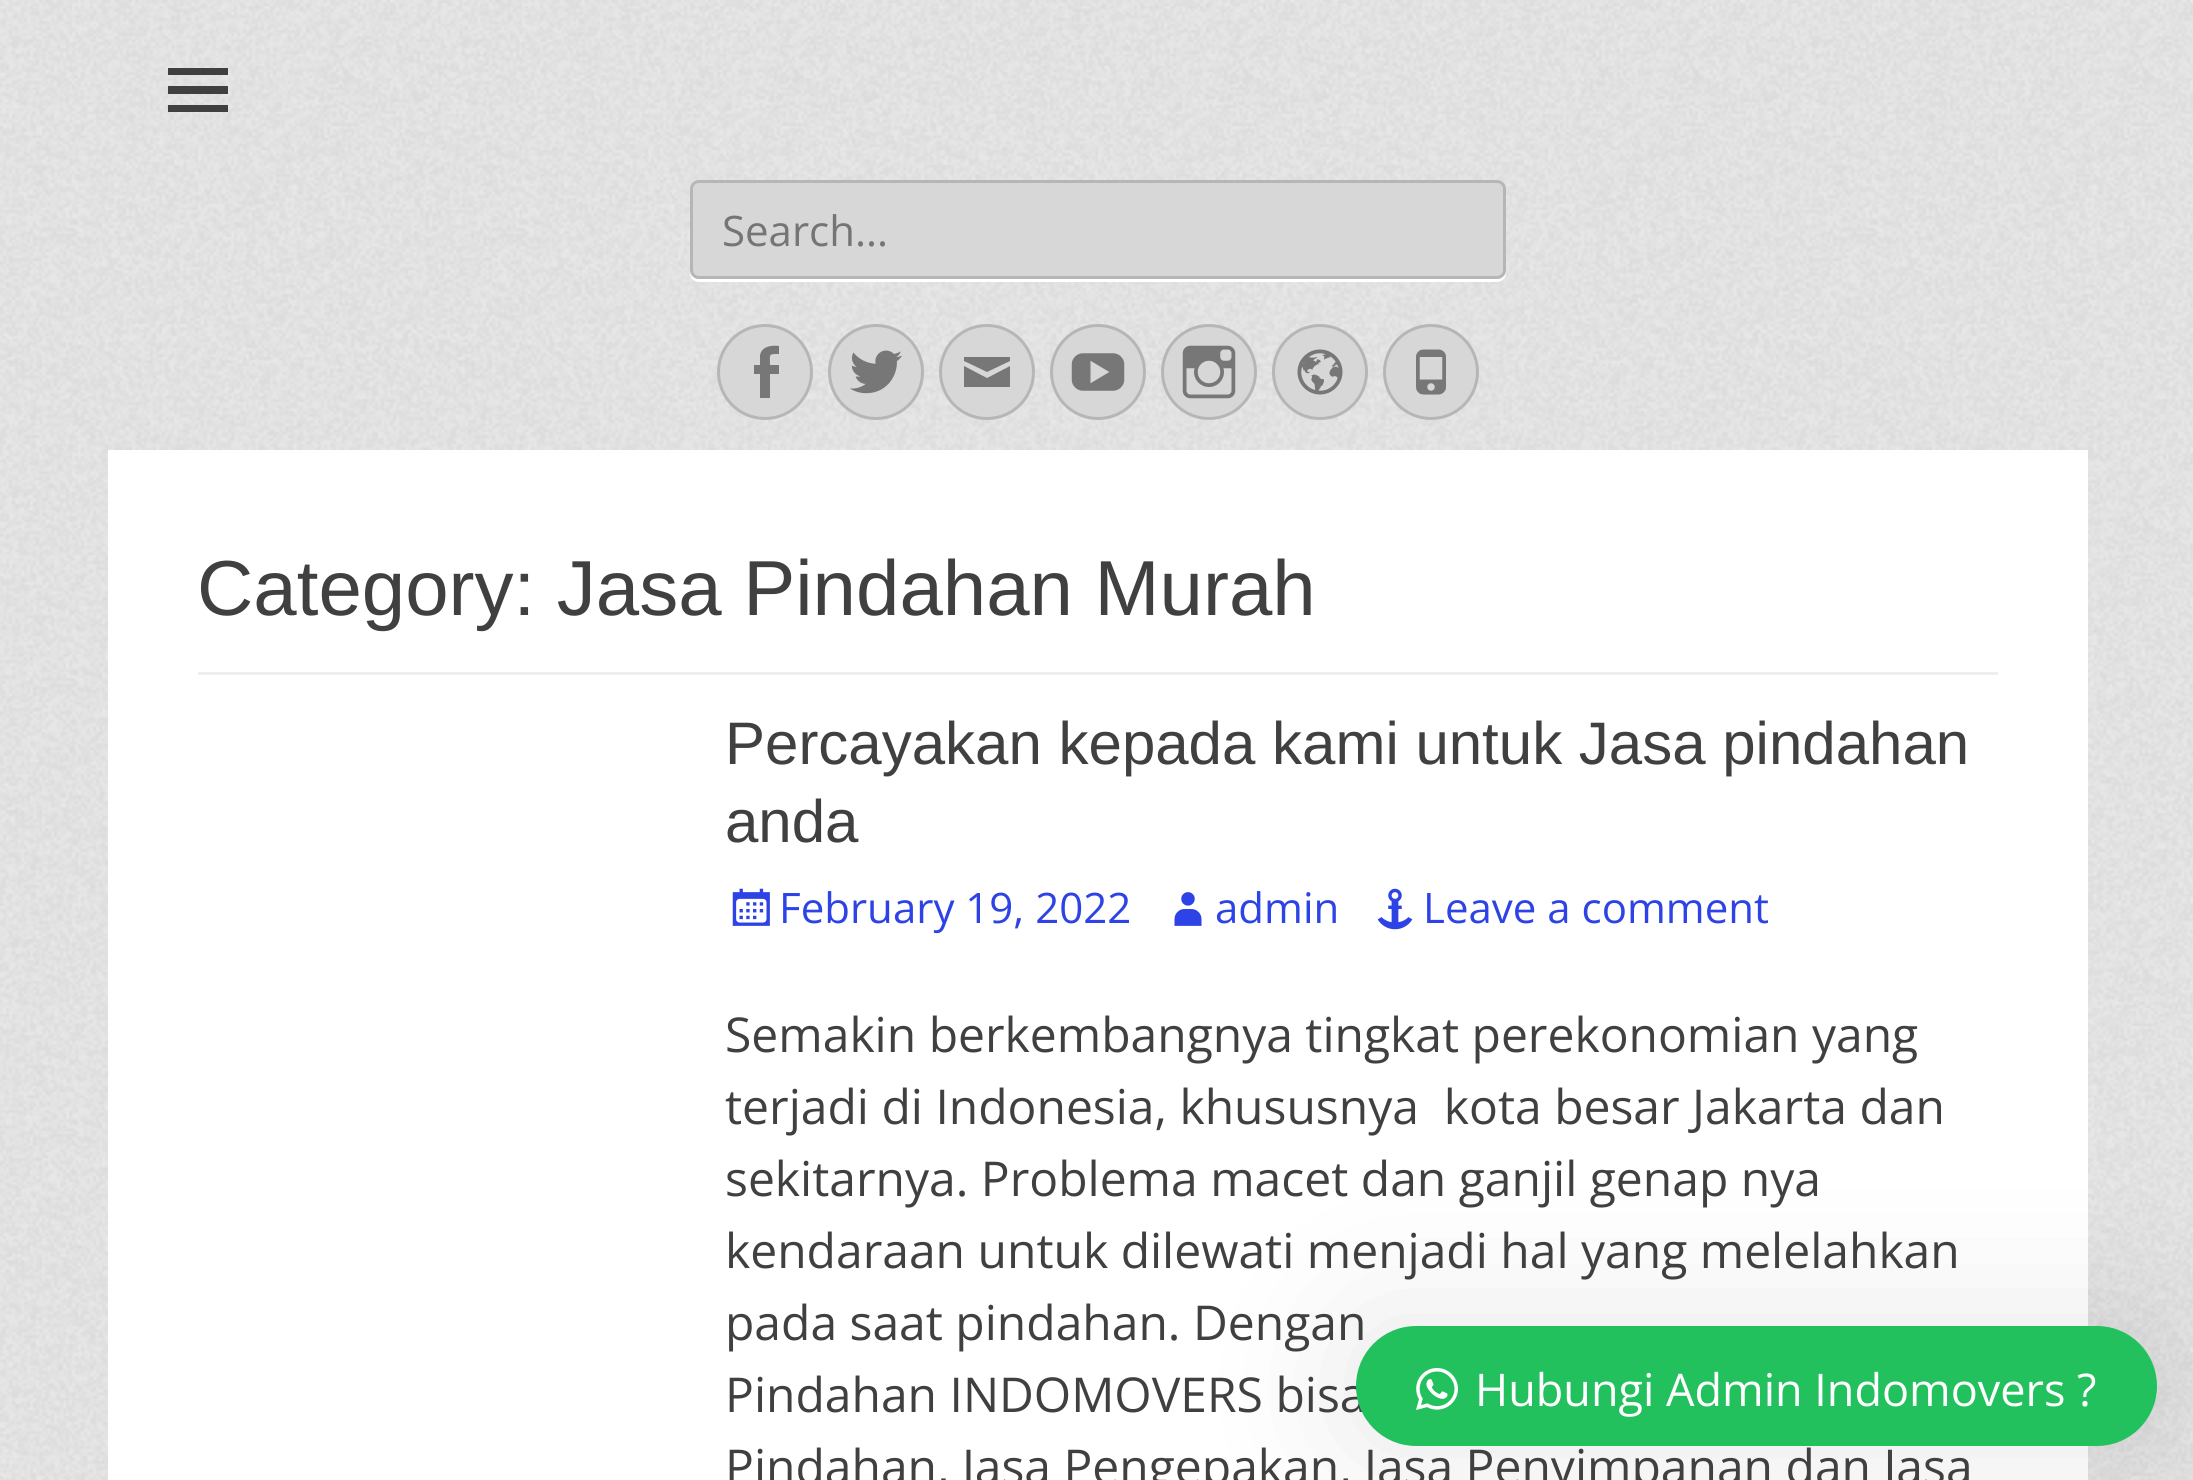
import math
import cairo

surface = cairo.ImageSurface(cairo.FORMAT_RGB24, 2193, 1480)
cr = cairo.Context(surface)
options = cairo.FontOptions()
options.set_hint_metrics(cairo.HINT_METRICS_OFF)
options.set_hint_style(cairo.HINT_STYLE_NONE)
cr.set_font_options(options)
cr.set_miter_limit(4)


def rgb(code):
    cr.set_source_rgb(*(v / 255 for v in bytes.fromhex(code[-6:])))


def rrect(x, y, w, h, r):
    cr.new_sub_path()
    for i, (u, v) in enumerate([(x + w - r, y + h - r), (x + r, y + h - r), (x + r, y + r), (x + w - r, y + r)]):
        cr.arc(u, v, r, i * math.pi / 2, (i + 1) * math.pi / 2)
    cr.close_path()


def soft_shadow(x, y, w, h, r, blur, alpha):
    cr.push_group_with_content(cairo.CONTENT_ALPHA)
    cr.set_operator(cairo.OPERATOR_SOURCE)
    for i in range(15, -16, -2):
        e = blur * i / 6
        if min(w, h) + 2 * e > 0:
            cr.set_source_rgba(0, 0, 0, alpha * math.erfc((i - 1) / 8.5) / 2)
            rrect(x - e, y - e, w + 2 * e, h + 2 * e, max(0, min(r + e + blur * .6, min(w, h) / 2 + e)))
            cr.fill()
    cr.mask(cr.pop_group())


def image(path, x, y, w, h):
    cr.save()
    cr.set_source_surface(cairo.ImageSurface.create_from_png(path), x, y)
    cr.rectangle(x, y, w, h)
    cr.fill()
    cr.restore()


rgb("#ffffff")
cr.paint()
image("img/1.png", 0, 0, 2193, 1480)
rgb("#404040")
cr.new_path()
cr.move_to(168, 112)
cr.line_to(168, 105)
cr.line_to(228, 105)
cr.line_to(228, 112)
cr.close_path()
cr.move_to(168, 68)
cr.line_to(228, 68)
cr.line_to(228, 75)
cr.line_to(168, 75)
cr.close_path()
cr.move_to(168, 94)
cr.line_to(168, 86)
cr.line_to(228, 86)
cr.line_to(228, 94)
cr.close_path()
cr.fill()
rgb("#ffffff")
cr.new_path()
cr.move_to(690, 270)
cr.line_to(690, 273)
cr.curve_to(690, 278, 694, 282, 699, 282)
cr.line_to(1497, 282)
cr.curve_to(1502, 282, 1506, 278, 1506, 273)
cr.line_to(1506, 270)
cr.curve_to(1506, 275, 1502, 279, 1497, 279)
cr.line_to(699, 279)
cr.curve_to(694, 279, 690, 275, 690, 270)
cr.close_path()
cr.fill()
rgb("#d7d7d7")
rrect(691.5, 181.5, 813, 96, 7.5)
cr.fill_preserve()
rgb("#b6b6b6")
cr.set_line_width(3)
cr.stroke()
rgb("#d7d7d7")
cr.arc(765, 372, 46.5, 0, 2 * math.pi)
cr.fill_preserve()
rgb("#b6b6b6")
cr.stroke()
rgb("#777777")
cr.new_path()
cr.move_to(770, 365)
cr.line_to(779, 365)
cr.line_to(779, 374)
cr.line_to(770, 374)
cr.line_to(770, 398)
cr.line_to(760, 398)
cr.line_to(760, 374)
cr.line_to(754, 374)
cr.line_to(754, 365)
cr.line_to(760, 365)
cr.line_to(760, 355)
cr.curve_to(762, 346, 772, 345, 779, 346)
cr.line_to(779, 354)
cr.curve_to(768, 354, 770, 354, 770, 365)
cr.close_path()
cr.fill()
rgb("#d7d7d7")
cr.arc(876, 372, 46.5, 0, 2 * math.pi)
cr.fill_preserve()
rgb("#b6b6b6")
cr.stroke()
image("img/2.png", 850, 350, 52, 44)
rgb("#d7d7d7")
cr.arc(987, 372, 46.5, 0, 2 * math.pi)
cr.fill_preserve()
rgb("#b6b6b6")
cr.stroke()
rgb("#777777")
cr.new_path()
cr.move_to(964, 357)
cr.line_to(1010, 357)
cr.line_to(1010, 361)
cr.line_to(987, 372)
cr.line_to(964, 361)
cr.close_path()
cr.move_to(964, 366)
cr.line_to(987, 378)
cr.line_to(1010, 366)
cr.line_to(1010, 387)
cr.line_to(964, 387)
cr.close_path()
cr.fill()
rgb("#d7d7d7")
cr.arc(1098, 372, 46.5, 0, 2 * math.pi)
cr.fill_preserve()
rgb("#b6b6b6")
cr.stroke()
image("img/3.png", 1071, 353, 54, 38)
rgb("#d7d7d7")
cr.arc(1209, 372, 46.5, 0, 2 * math.pi)
cr.fill_preserve()
rgb("#b6b6b6")
cr.stroke()
image("img/4.png", 1182, 345, 54, 54)
rgb("#d7d7d7")
cr.arc(1320, 372, 46.5, 0, 2 * math.pi)
cr.fill_preserve()
rgb("#b6b6b6")
cr.stroke()
image("img/5.png", 1297, 349, 46, 46)
rgb("#d7d7d7")
cr.arc(1431, 372, 46.5, 0, 2 * math.pi)
cr.fill_preserve()
rgb("#b6b6b6")
cr.stroke()
image("img/6.png", 1416, 349, 30, 46)
rgb("#ffffff")
cr.rectangle(108, 450, 1980, 1030)
cr.fill()
rgb("#eeeeee")
cr.rectangle(198, 672, 1800, 3)
cr.fill()
image("img/7.png", 732, 888, 38, 38)
image("img/8.png", 1174, 892, 28, 34)
image("img/9.png", 1377, 888, 36, 42)
rgb("#000000")
soft_shadow(1356, 1326, 801, 120, 60, 75, 0.1)
cr.select_font_face("Open Sans")
cr.set_font_size(42)
rgb("#757575")
cr.move_to(722, 246)
cr.show_text("Search...")
cr.select_font_face("Liberation Sans")
cr.set_font_size(78)
rgb("#404040")
cr.move_to(197, 615)
cr.show_text("Category: Jasa Pindahan Murah")
cr.set_font_size(60)
cr.move_to(725, 764)
cr.show_text("Percayakan kepada kami untuk Jasa pindahan")
cr.move_to(725, 842)
cr.show_text("anda")
cr.select_font_face("Open Sans")
cr.set_font_size(42)
rgb("#2d43e5")
for x, y, s in [
    (779, 923, "February 19, 2022"),
    (1215, 923, "admin"),
    (1423, 923, "Leave a comment"),
]:
    cr.move_to(x, y)
    cr.show_text(s)
cr.set_font_size(48)
rgb("#404040")
for x, y, s in [
    (725, 1052, "Semakin berkembangnya tingkat perekonomian yang"),
    (725, 1124, "terjadi di Indonesia, khususnya  kota besar Jakarta dan"),
    (725, 1196, "sekitarnya. Problema macet dan ganjil genap nya"),
    (725, 1268, "kendaraan untuk dilewati menjadi hal yang melelahkan"),
    (725, 1340, "pada saat pindahan. Dengan"),
    (725, 1412, "Pindahan INDOMOVERS bisa"),
    (725, 1484, "Pindahan, Jasa Pengepakan, Jasa Penyimpanan dan Jasa"),
]:
    cr.move_to(x, y)
    cr.show_text(s)
rgb("#22c15e")
rrect(1356, 1326, 801, 120, 60)
cr.fill()
image("img/10.png", 1416, 1368, 42, 42)
cr.set_font_size(45)
rgb("#ffffff")
cr.move_to(1475, 1406)
cr.show_text("Hubungi Admin Indomovers ?")
surface.write_to_png("page.png")
